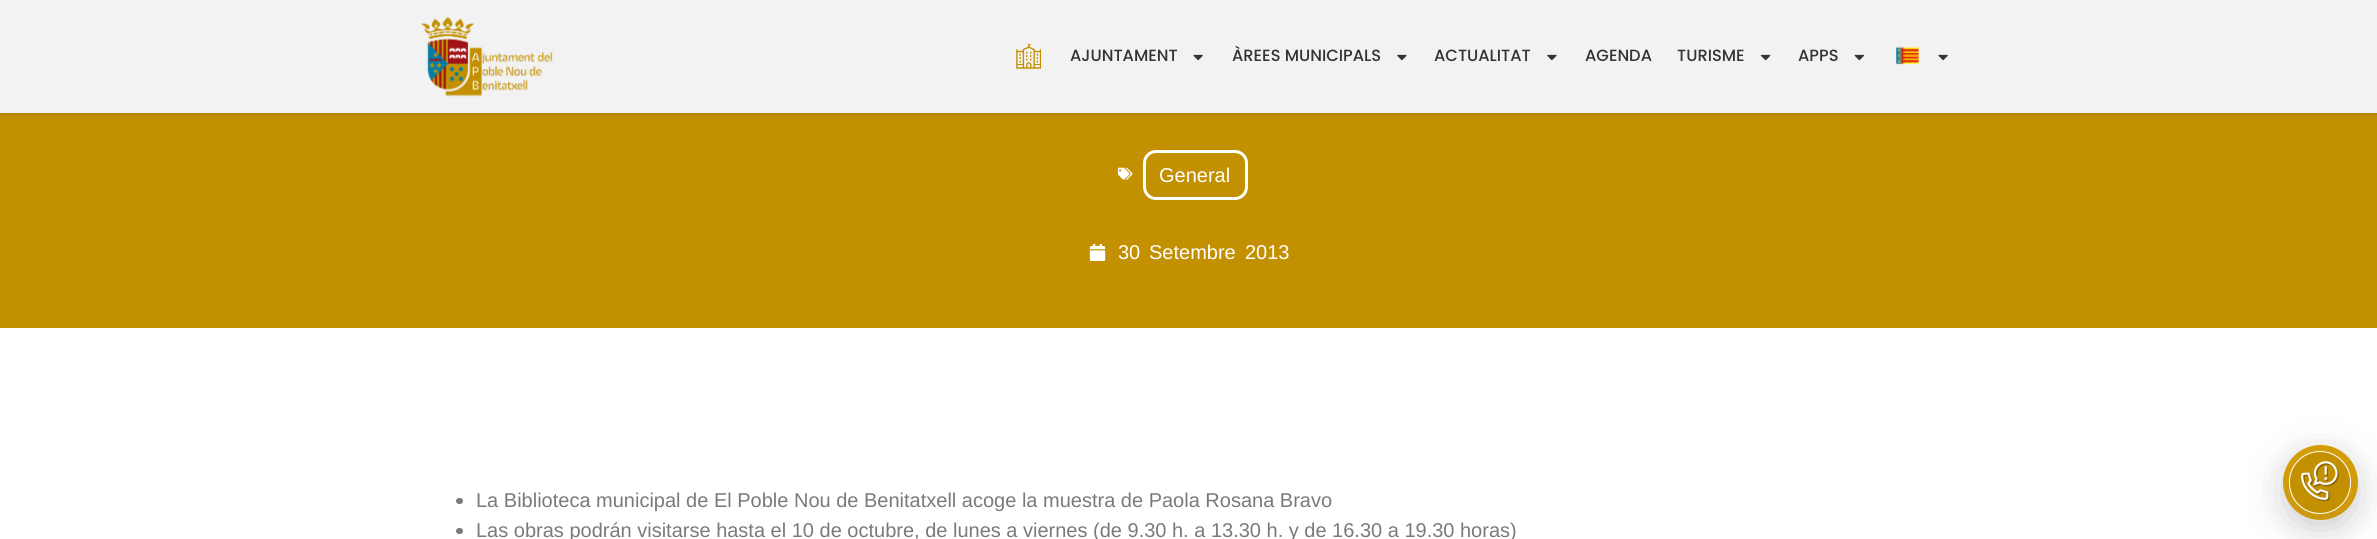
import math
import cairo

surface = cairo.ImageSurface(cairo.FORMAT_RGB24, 2377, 539)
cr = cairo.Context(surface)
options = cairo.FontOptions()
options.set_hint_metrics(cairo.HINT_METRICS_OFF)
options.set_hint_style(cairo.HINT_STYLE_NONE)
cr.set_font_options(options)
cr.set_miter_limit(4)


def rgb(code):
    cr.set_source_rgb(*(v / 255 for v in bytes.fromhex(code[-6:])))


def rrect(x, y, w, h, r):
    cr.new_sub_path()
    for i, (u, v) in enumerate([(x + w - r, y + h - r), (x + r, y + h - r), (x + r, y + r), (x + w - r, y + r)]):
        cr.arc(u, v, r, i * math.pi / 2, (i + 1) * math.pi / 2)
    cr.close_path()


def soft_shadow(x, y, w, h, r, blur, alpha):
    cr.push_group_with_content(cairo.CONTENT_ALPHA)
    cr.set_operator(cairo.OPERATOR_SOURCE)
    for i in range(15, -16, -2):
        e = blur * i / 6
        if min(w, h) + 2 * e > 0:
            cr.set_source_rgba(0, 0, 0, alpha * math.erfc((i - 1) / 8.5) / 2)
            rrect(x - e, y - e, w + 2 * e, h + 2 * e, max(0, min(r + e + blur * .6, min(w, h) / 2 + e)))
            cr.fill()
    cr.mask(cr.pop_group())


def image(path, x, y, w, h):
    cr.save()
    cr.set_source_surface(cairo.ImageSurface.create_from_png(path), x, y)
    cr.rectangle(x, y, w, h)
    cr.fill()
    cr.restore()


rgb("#ffffff")
cr.paint()
rgb("#c39001")
cr.rectangle(0, 113, 2377, 215)
cr.fill()
rgb("#000000")
soft_shadow(0, 0, 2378, 113, 0, 3, 0.19)
rgb("#f2f2f2")
cr.rectangle(0, 0, 2377, 113)
cr.fill()
image("img/1.png", 420, 17, 133, 80)
image("img/2.png", 1016, 44, 25, 25)
image("img/3.png", 1193, 54, 10, 7)
image("img/4.png", 1397, 54, 10, 7)
image("img/4.png", 1547, 54, 10, 7)
image("img/5.png", 1760, 54, 11, 7)
image("img/6.png", 1854, 54, 11, 7)
image("img/7.png", 1896, 46, 23, 19)
image("img/3.png", 1938, 54, 10, 7)
image("img/8.png", 1118, 167, 15, 13)
rrect(1144.5, 151.5, 102, 47, 11.5)
rgb("#ffffff")
cr.set_line_width(3)
cr.stroke()
image("img/9.png", 1089, 244, 17, 17)
rgb("#7a7a7a")
rrect(456, 498, 7, 6, 3)
cr.fill()
rrect(456, 528, 7, 6, 3)
cr.fill()
rgb("#64646f")
soft_shadow(2283, 454, 75, 75, 37.5, 18, 0.2)
rgb("#daa000")
cr.arc(2320.5, 482.5, 37.5, 0, 2 * math.pi)
cr.fill()
rgb("#64646f")
soft_shadow(2289, 460, 62, 63, 31, 18, 0.2)
rgb("#c39001")
rrect(2289.5, 451.5, 61, 62, 30.5)
cr.fill_preserve()
rgb("#ffffff")
cr.set_line_width(1)
cr.stroke()
image("img/10.png", 2301, 461, 38, 40)
cr.select_font_face("Poppins Medium")
cr.set_font_size(16.25)
rgb("#333333")
for x, y, s in [
    (1070, 61, "AJUNTAMENT"),
    (1232, 61, "ÀREES MUNICIPALS"),
    (1434, 61, "ACTUALITAT"),
    (1585, 61, "AGENDA"),
    (1677, 61, "TURISME"),
    (1798, 61, "APPS"),
]:
    cr.move_to(x, y)
    cr.show_text(s)
cr.select_font_face("Liberation Sans")
cr.set_font_size(20)
rgb("#ffffff")
for x, y, s in [
    (1159, 182, "General"),
    (1118, 259, "30"),
    (1149, 259, "Setembre"),
    (1245, 259, "2013"),
]:
    cr.move_to(x, y)
    cr.show_text(s)
rgb("#7a7a7a")
cr.move_to(476, 507)
cr.show_text("La Biblioteca municipal de El Poble Nou de Benitatxell acoge la muestra de Paola Rosana Bravo")
cr.move_to(476, 537)
cr.show_text("Las obras podrán visitarse hasta el 10 de octubre, de lunes a viernes (de 9.30 h. a 13.30 h. y de 16.30 a 19.30 horas)")
surface.write_to_png("page.png")
